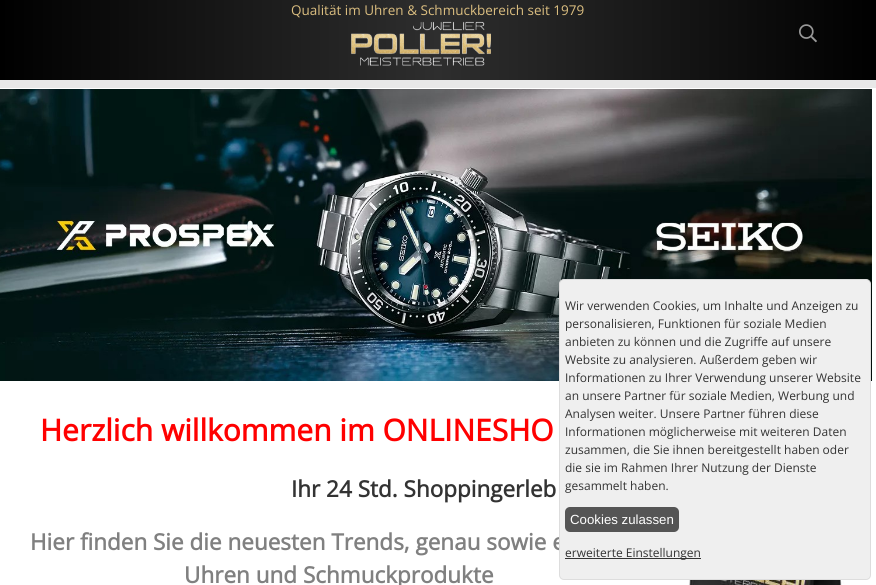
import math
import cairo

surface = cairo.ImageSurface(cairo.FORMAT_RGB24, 876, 585)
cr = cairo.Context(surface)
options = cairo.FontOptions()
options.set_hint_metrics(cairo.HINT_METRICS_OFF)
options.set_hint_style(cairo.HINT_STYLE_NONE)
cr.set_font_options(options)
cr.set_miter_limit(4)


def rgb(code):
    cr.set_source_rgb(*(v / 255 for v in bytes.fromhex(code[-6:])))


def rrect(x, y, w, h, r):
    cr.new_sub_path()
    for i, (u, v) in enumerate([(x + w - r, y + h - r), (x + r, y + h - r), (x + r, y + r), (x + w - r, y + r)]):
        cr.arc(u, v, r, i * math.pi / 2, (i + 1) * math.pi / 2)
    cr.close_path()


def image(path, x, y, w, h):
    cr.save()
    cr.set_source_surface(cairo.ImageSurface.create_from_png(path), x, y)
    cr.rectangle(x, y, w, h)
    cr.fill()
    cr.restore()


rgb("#ffffff")
cr.paint()
gradient = cairo.LinearGradient(0, 40, 876, 40)
gradient.add_color_stop_rgba(0, 0, 0, 0, 1)
gradient.add_color_stop_rgba(0.5, 0.18, 0.18, 0.18, 1)
gradient.add_color_stop_rgba(1, 0, 0, 0, 1)
cr.set_source(gradient)
cr.rectangle(0, 0, 876, 80)
cr.fill()
image("img/1.png", 351, 21, 140, 45)
image("img/2.png", 799, 24, 18, 19)
rgb("#e8e8e8")
cr.rectangle(0, 80, 876, 8)
cr.fill()
image("img/3.png", 0, 89, 872, 292)
image("img/4.png", 688, 580, 158, 5)
cr.select_font_face("Open Sans")
cr.set_font_size(13.5)
rgb("#dbbe80")
cr.move_to(291, 15)
cr.show_text("Qualität im Uhren & Schmuckbereich seit 1979")
cr.select_font_face("Open Sans", cairo.FONT_SLANT_NORMAL, cairo.FONT_WEIGHT_BOLD)
cr.set_font_size(30)
rgb("#ff0000")
cr.move_to(40, 441)
cr.show_text("Herzlich willkommen im ONLINESHO")
cr.set_font_size(22.5)
rgb("#333333")
cr.move_to(291, 497)
cr.show_text("Ihr 24 Std. Shoppingerleb")
rgb("#808080")
cr.move_to(30, 550)
cr.show_text("Hier finden Sie die neuesten Trends, genau sowie e")
cr.move_to(184, 583)
cr.show_text("Uhren und Schmuckprodukte")
rgb("#efefef")
rrect(559.5, 279.5, 311, 300, 4.5)
cr.fill_preserve()
rgb("#dddddd")
cr.set_line_width(1)
cr.stroke()
cr.select_font_face("Open Sans")
cr.set_font_size(12)
rgb("#333333")
for x, y, s in [
    (565, 310, "Wir verwenden Cookies, um Inhalte und Anzeigen zu"),
    (565, 328, "personalisieren, Funktionen für soziale Medien"),
    (565, 346, "anbieten zu können und die Zugriffe auf unsere"),
    (565, 364, "Website zu analysieren. Außerdem geben wir"),
    (565, 382, "Informationen zu Ihrer Verwendung unserer Website"),
    (565, 400, "an unsere Partner für soziale Medien, Werbung und"),
    (565, 418, "Analysen weiter. Unsere Partner führen diese"),
    (565, 436, "Informationen möglicherweise mit weiteren Daten"),
    (565, 454, "zusammen, die Sie ihnen bereitgestellt haben oder"),
    (565, 472, "die sie im Rahmen Ihrer Nutzung der Dienste"),
    (565, 490, "gesammelt haben."),
]:
    cr.move_to(x, y)
    cr.show_text(s)
rgb("#555555")
rrect(565, 507, 114, 25, 5)
cr.fill()
cr.select_font_face("Liberation Sans")
cr.set_font_size(13.25)
rgb("#ffffff")
cr.move_to(570, 524)
cr.show_text("Cookies zulassen")
rgb("#333333")
cr.rectangle(565, 558, 136, 1)
cr.fill()
cr.select_font_face("Open Sans")
cr.set_font_size(12)
cr.move_to(565, 557)
cr.show_text("erweiterte Einstellungen")
surface.write_to_png("page.png")
